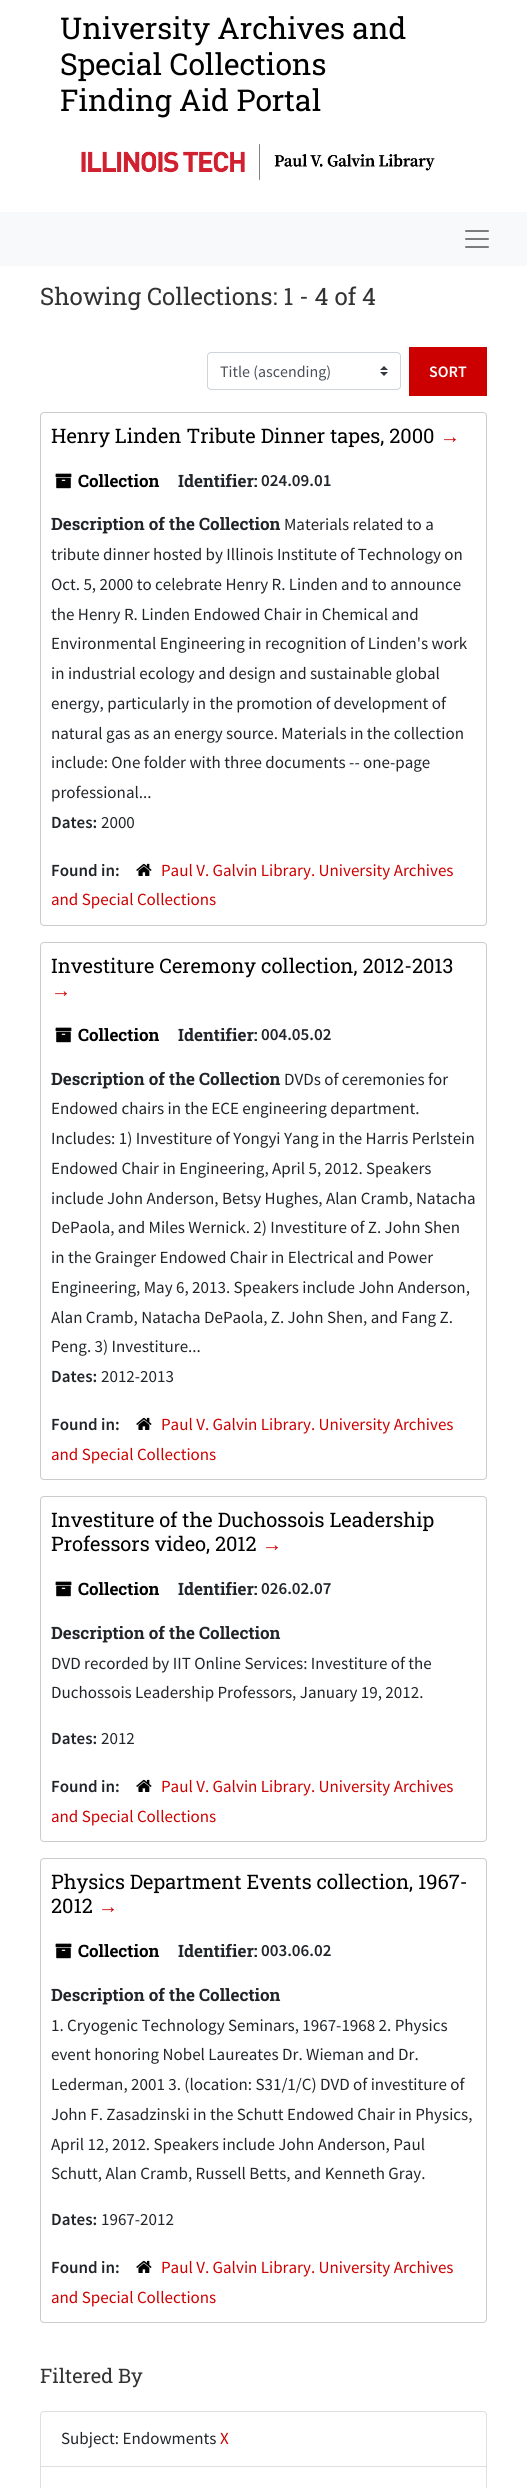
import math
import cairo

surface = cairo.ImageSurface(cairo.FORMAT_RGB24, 527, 2488)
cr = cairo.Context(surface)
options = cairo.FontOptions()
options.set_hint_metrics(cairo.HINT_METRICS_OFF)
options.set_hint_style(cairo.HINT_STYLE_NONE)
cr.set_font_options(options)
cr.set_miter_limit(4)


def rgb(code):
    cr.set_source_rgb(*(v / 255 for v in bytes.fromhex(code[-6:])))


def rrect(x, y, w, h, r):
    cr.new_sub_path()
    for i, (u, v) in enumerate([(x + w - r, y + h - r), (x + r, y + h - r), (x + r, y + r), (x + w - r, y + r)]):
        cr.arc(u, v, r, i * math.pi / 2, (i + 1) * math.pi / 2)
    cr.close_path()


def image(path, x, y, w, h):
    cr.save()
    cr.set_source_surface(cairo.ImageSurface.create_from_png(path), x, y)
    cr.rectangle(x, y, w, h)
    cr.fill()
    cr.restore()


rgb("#ffffff")
cr.paint()
image("img/1.png", 81, 144, 354, 36)
rgb("#f8f9fa")
cr.rectangle(0, 212, 527, 54)
cr.fill()
image("img/2.png", 465, 230, 24, 18)
image("img/3.png", 380, 366, 8, 10)
rrect(207.5, 352.5, 193, 37, 3.5)
rgb("#ced4da")
cr.set_line_width(1)
cr.stroke()
rgb("#cc0000")
cr.rectangle(409, 347, 78, 49)
cr.fill()
rrect(40.5, 412.5, 446, 513, 3.5)
rgb("#cccccc")
cr.stroke()
image("img/4.png", 55, 473, 17, 16)
image("img/5.png", 136, 863, 16, 13)
rrect(40.5, 942.5, 446, 537, 3.5)
cr.stroke()
image("img/4.png", 55, 1027, 17, 16)
image("img/5.png", 136, 1417, 16, 13)
rrect(40.5, 1496.5, 446, 345, 3.5)
cr.stroke()
image("img/4.png", 55, 1581, 17, 16)
image("img/5.png", 136, 1779, 16, 13)
rrect(40.5, 1858.5, 446, 464, 3.5)
cr.stroke()
image("img/4.png", 55, 1943, 17, 16)
image("img/5.png", 136, 2260, 16, 13)
cr.new_path()
cr.move_to(44, 2411.5)
cr.line_to(483, 2411.5)
cr.curve_to(485, 2411.5, 486.5, 2413, 486.5, 2415)
cr.line_to(486.5, 2466.5)
cr.line_to(40.5, 2466.5)
cr.line_to(40.5, 2415)
cr.curve_to(40.5, 2413, 42, 2411.5, 44, 2411.5)
cr.close_path()
rgb("#dfdfdf")
cr.stroke()
cr.rectangle(40.5, 2466.5, 446, 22)
cr.stroke()
cr.select_font_face("Roboto Slab")
cr.set_font_size(30)
rgb("#000000")
for x, y, s in [
    (60, 39, "University Archives and"),
    (60, 75, "Special Collections"),
    (60, 111, "Finding Aid Portal"),
]:
    cr.move_to(x, y)
    cr.show_text(s)
cr.set_font_size(24)
rgb("#333333")
cr.move_to(40, 305)
cr.show_text("Showing Collections: 1 - 4 of 4")
cr.select_font_face("Source Sans Pro")
cr.set_font_size(16)
rgb("#495057")
cr.move_to(220, 377)
cr.show_text("Title (ascending)")
cr.select_font_face("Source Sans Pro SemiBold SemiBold")
rgb("#ffffff")
cr.move_to(429, 377)
cr.show_text("SORT")
cr.select_font_face("Roboto Slab")
cr.set_font_size(20)
rgb("#000000")
cr.move_to(51, 443)
cr.show_text("Henry Linden Tribute Dinner tapes, 2000")
cr.select_font_face("Liberation Sans")
rgb("#cc0000")
cr.move_to(440, 443)
cr.show_text("→")
cr.select_font_face("Roboto Slab", cairo.FONT_SLANT_NORMAL, cairo.FONT_WEIGHT_BOLD)
cr.set_font_size(17)
rgb("#000000")
cr.move_to(78, 487)
cr.show_text("Collection")
rgb("#212529")
cr.move_to(178, 487)
cr.show_text("Identifier:")
cr.select_font_face("Source Sans Pro SemiBold SemiBold")
cr.move_to(261, 486)
cr.show_text("024.09.01")
cr.select_font_face("Roboto Slab", cairo.FONT_SLANT_NORMAL, cairo.FONT_WEIGHT_BOLD)
cr.move_to(51, 530)
cr.show_text("Description of the Collection")
cr.select_font_face("Source Sans Pro")
for x, y, s in [
    (284, 530, "Materials related to a"),
    (51, 560, "tribute dinner hosted by Illinois Institute of Technology on"),
    (51, 590, "Oct. 5, 2000 to celebrate Henry R. Linden and to announce"),
    (51, 620, "the Henry R. Linden Endowed Chair in Chemical and"),
    (51, 649, "Environmental Engineering in recognition of Linden's work"),
    (51, 679, "in industrial ecology and design and sustainable global"),
    (51, 709, "energy, particularly in the promotion of development of"),
    (51, 739, "natural gas as an energy source. Materials in the collection"),
    (51, 768, "include: One folder with three documents -- one-page"),
    (51, 798, "professional..."),
]:
    cr.move_to(x, y)
    cr.show_text(s)
cr.select_font_face("Source Sans Pro SemiBold SemiBold")
cr.move_to(51, 828)
cr.show_text("Dates:")
cr.select_font_face("Source Sans Pro")
cr.move_to(101, 828)
cr.show_text("2000")
rgb("#cc0000")
cr.move_to(161, 876)
cr.show_text("Paul V. Galvin Library. University Archives")
cr.move_to(51, 905)
cr.show_text("and Special Collections")
cr.select_font_face("Source Sans Pro SemiBold SemiBold")
rgb("#212529")
cr.move_to(51, 876)
cr.show_text("Found in:")
cr.select_font_face("Roboto Slab")
cr.set_font_size(20)
rgb("#000000")
cr.move_to(51, 973)
cr.show_text("Investiture Ceremony collection, 2012-2013")
cr.select_font_face("Liberation Sans")
rgb("#cc0000")
cr.move_to(51, 997)
cr.show_text("→")
cr.select_font_face("Roboto Slab", cairo.FONT_SLANT_NORMAL, cairo.FONT_WEIGHT_BOLD)
cr.set_font_size(17)
rgb("#000000")
cr.move_to(78, 1041)
cr.show_text("Collection")
rgb("#212529")
cr.move_to(178, 1041)
cr.show_text("Identifier:")
cr.select_font_face("Source Sans Pro SemiBold SemiBold")
cr.move_to(261, 1040)
cr.show_text("004.05.02")
cr.select_font_face("Roboto Slab", cairo.FONT_SLANT_NORMAL, cairo.FONT_WEIGHT_BOLD)
cr.move_to(51, 1085)
cr.show_text("Description of the Collection")
cr.select_font_face("Source Sans Pro")
for x, y, s in [
    (284, 1085, "DVDs of ceremonies for"),
    (51, 1114, "Endowed chairs in the ECE engineering department."),
    (51, 1144, "Includes: 1) Investiture of Yongyi Yang in the Harris Perlstein"),
    (51, 1174, "Endowed Chair in Engineering, April 5, 2012. Speakers"),
    (51, 1204, "include John Anderson, Betsy Hughes, Alan Cramb, Natacha"),
    (51, 1233, "DePaola, and Miles Wernick. 2) Investiture of Z. John Shen"),
    (51, 1263, "in the Grainger Endowed Chair in Electrical and Power"),
    (51, 1293, "Engineering, May 6, 2013. Speakers include John Anderson,"),
    (51, 1323, "Alan Cramb, Natacha DePaola, Z. John Shen, and Fang Z."),
    (51, 1352, "Peng. 3) Investiture..."),
]:
    cr.move_to(x, y)
    cr.show_text(s)
cr.select_font_face("Source Sans Pro SemiBold SemiBold")
cr.move_to(51, 1382)
cr.show_text("Dates:")
cr.select_font_face("Source Sans Pro")
cr.move_to(101, 1382)
cr.show_text("2012-2013")
rgb("#cc0000")
cr.move_to(161, 1430)
cr.show_text("Paul V. Galvin Library. University Archives")
cr.move_to(51, 1460)
cr.show_text("and Special Collections")
cr.select_font_face("Source Sans Pro SemiBold SemiBold")
rgb("#212529")
cr.move_to(51, 1430)
cr.show_text("Found in:")
cr.select_font_face("Roboto Slab")
cr.set_font_size(20)
rgb("#000000")
cr.move_to(51, 1527)
cr.show_text("Investiture of the Duchossois Leadership")
cr.move_to(51, 1551)
cr.show_text("Professors video, 2012")
cr.select_font_face("Liberation Sans")
rgb("#cc0000")
cr.move_to(262, 1551)
cr.show_text("→")
cr.select_font_face("Roboto Slab", cairo.FONT_SLANT_NORMAL, cairo.FONT_WEIGHT_BOLD)
cr.set_font_size(17)
rgb("#000000")
cr.move_to(78, 1595)
cr.show_text("Collection")
rgb("#212529")
cr.move_to(178, 1595)
cr.show_text("Identifier:")
cr.select_font_face("Source Sans Pro SemiBold SemiBold")
cr.move_to(261, 1594)
cr.show_text("026.02.07")
cr.select_font_face("Roboto Slab", cairo.FONT_SLANT_NORMAL, cairo.FONT_WEIGHT_BOLD)
cr.move_to(51, 1639)
cr.show_text("Description of the Collection")
cr.select_font_face("Source Sans Pro")
cr.move_to(51, 1669)
cr.show_text("DVD recorded by IIT Online Services: Investiture of the")
cr.move_to(51, 1698)
cr.show_text("Duchossois Leadership Professors, January 19, 2012.")
cr.select_font_face("Source Sans Pro SemiBold SemiBold")
cr.move_to(51, 1744)
cr.show_text("Dates:")
cr.select_font_face("Source Sans Pro")
cr.move_to(101, 1744)
cr.show_text("2012")
rgb("#cc0000")
cr.move_to(161, 1792)
cr.show_text("Paul V. Galvin Library. University Archives")
cr.move_to(51, 1822)
cr.show_text("and Special Collections")
cr.select_font_face("Source Sans Pro SemiBold SemiBold")
rgb("#212529")
cr.move_to(51, 1792)
cr.show_text("Found in:")
cr.select_font_face("Roboto Slab")
cr.set_font_size(20)
rgb("#000000")
cr.move_to(51, 1889)
cr.show_text("Physics Department Events collection, 1967-")
cr.move_to(51, 1913)
cr.show_text("2012")
cr.select_font_face("Liberation Sans")
rgb("#cc0000")
cr.move_to(98, 1913)
cr.show_text("→")
cr.select_font_face("Roboto Slab", cairo.FONT_SLANT_NORMAL, cairo.FONT_WEIGHT_BOLD)
cr.set_font_size(17)
rgb("#000000")
cr.move_to(78, 1957)
cr.show_text("Collection")
rgb("#212529")
cr.move_to(178, 1957)
cr.show_text("Identifier:")
cr.select_font_face("Source Sans Pro SemiBold SemiBold")
cr.move_to(261, 1956)
cr.show_text("003.06.02")
cr.select_font_face("Roboto Slab", cairo.FONT_SLANT_NORMAL, cairo.FONT_WEIGHT_BOLD)
cr.move_to(51, 2001)
cr.show_text("Description of the Collection")
cr.select_font_face("Source Sans Pro")
for x, y, s in [
    (51, 2031, "1. Cryogenic Technology Seminars, 1967-1968 2. Physics"),
    (51, 2060, "event honoring Nobel Laureates Dr. Wieman and Dr."),
    (51, 2090, "Lederman, 2001 3. (location: S31/1/C) DVD of investiture of"),
    (51, 2120, "John F. Zasadzinski in the Schutt Endowed Chair in Physics,"),
    (51, 2150, "April 12, 2012. Speakers include John Anderson, Paul"),
    (51, 2179, "Schutt, Alan Cramb, Russell Betts, and Kenneth Gray."),
]:
    cr.move_to(x, y)
    cr.show_text(s)
cr.select_font_face("Source Sans Pro SemiBold SemiBold")
cr.move_to(51, 2225)
cr.show_text("Dates:")
cr.select_font_face("Source Sans Pro")
cr.move_to(101, 2225)
cr.show_text("1967-2012")
rgb("#cc0000")
cr.move_to(161, 2273)
cr.show_text("Paul V. Galvin Library. University Archives")
cr.move_to(51, 2303)
cr.show_text("and Special Collections")
cr.select_font_face("Source Sans Pro SemiBold SemiBold")
rgb("#212529")
cr.move_to(51, 2273)
cr.show_text("Found in:")
cr.select_font_face("Roboto Slab")
cr.set_font_size(20)
rgb("#333333")
cr.move_to(40, 2383)
cr.show_text("Filtered By")
cr.select_font_face("Source Sans Pro")
cr.set_font_size(17)
rgb("#212529")
cr.move_to(61, 2444)
cr.show_text("Subject: Endowments")
rgb("#cc0000")
cr.move_to(220, 2444)
cr.show_text("X")
surface.write_to_png("page.png")
